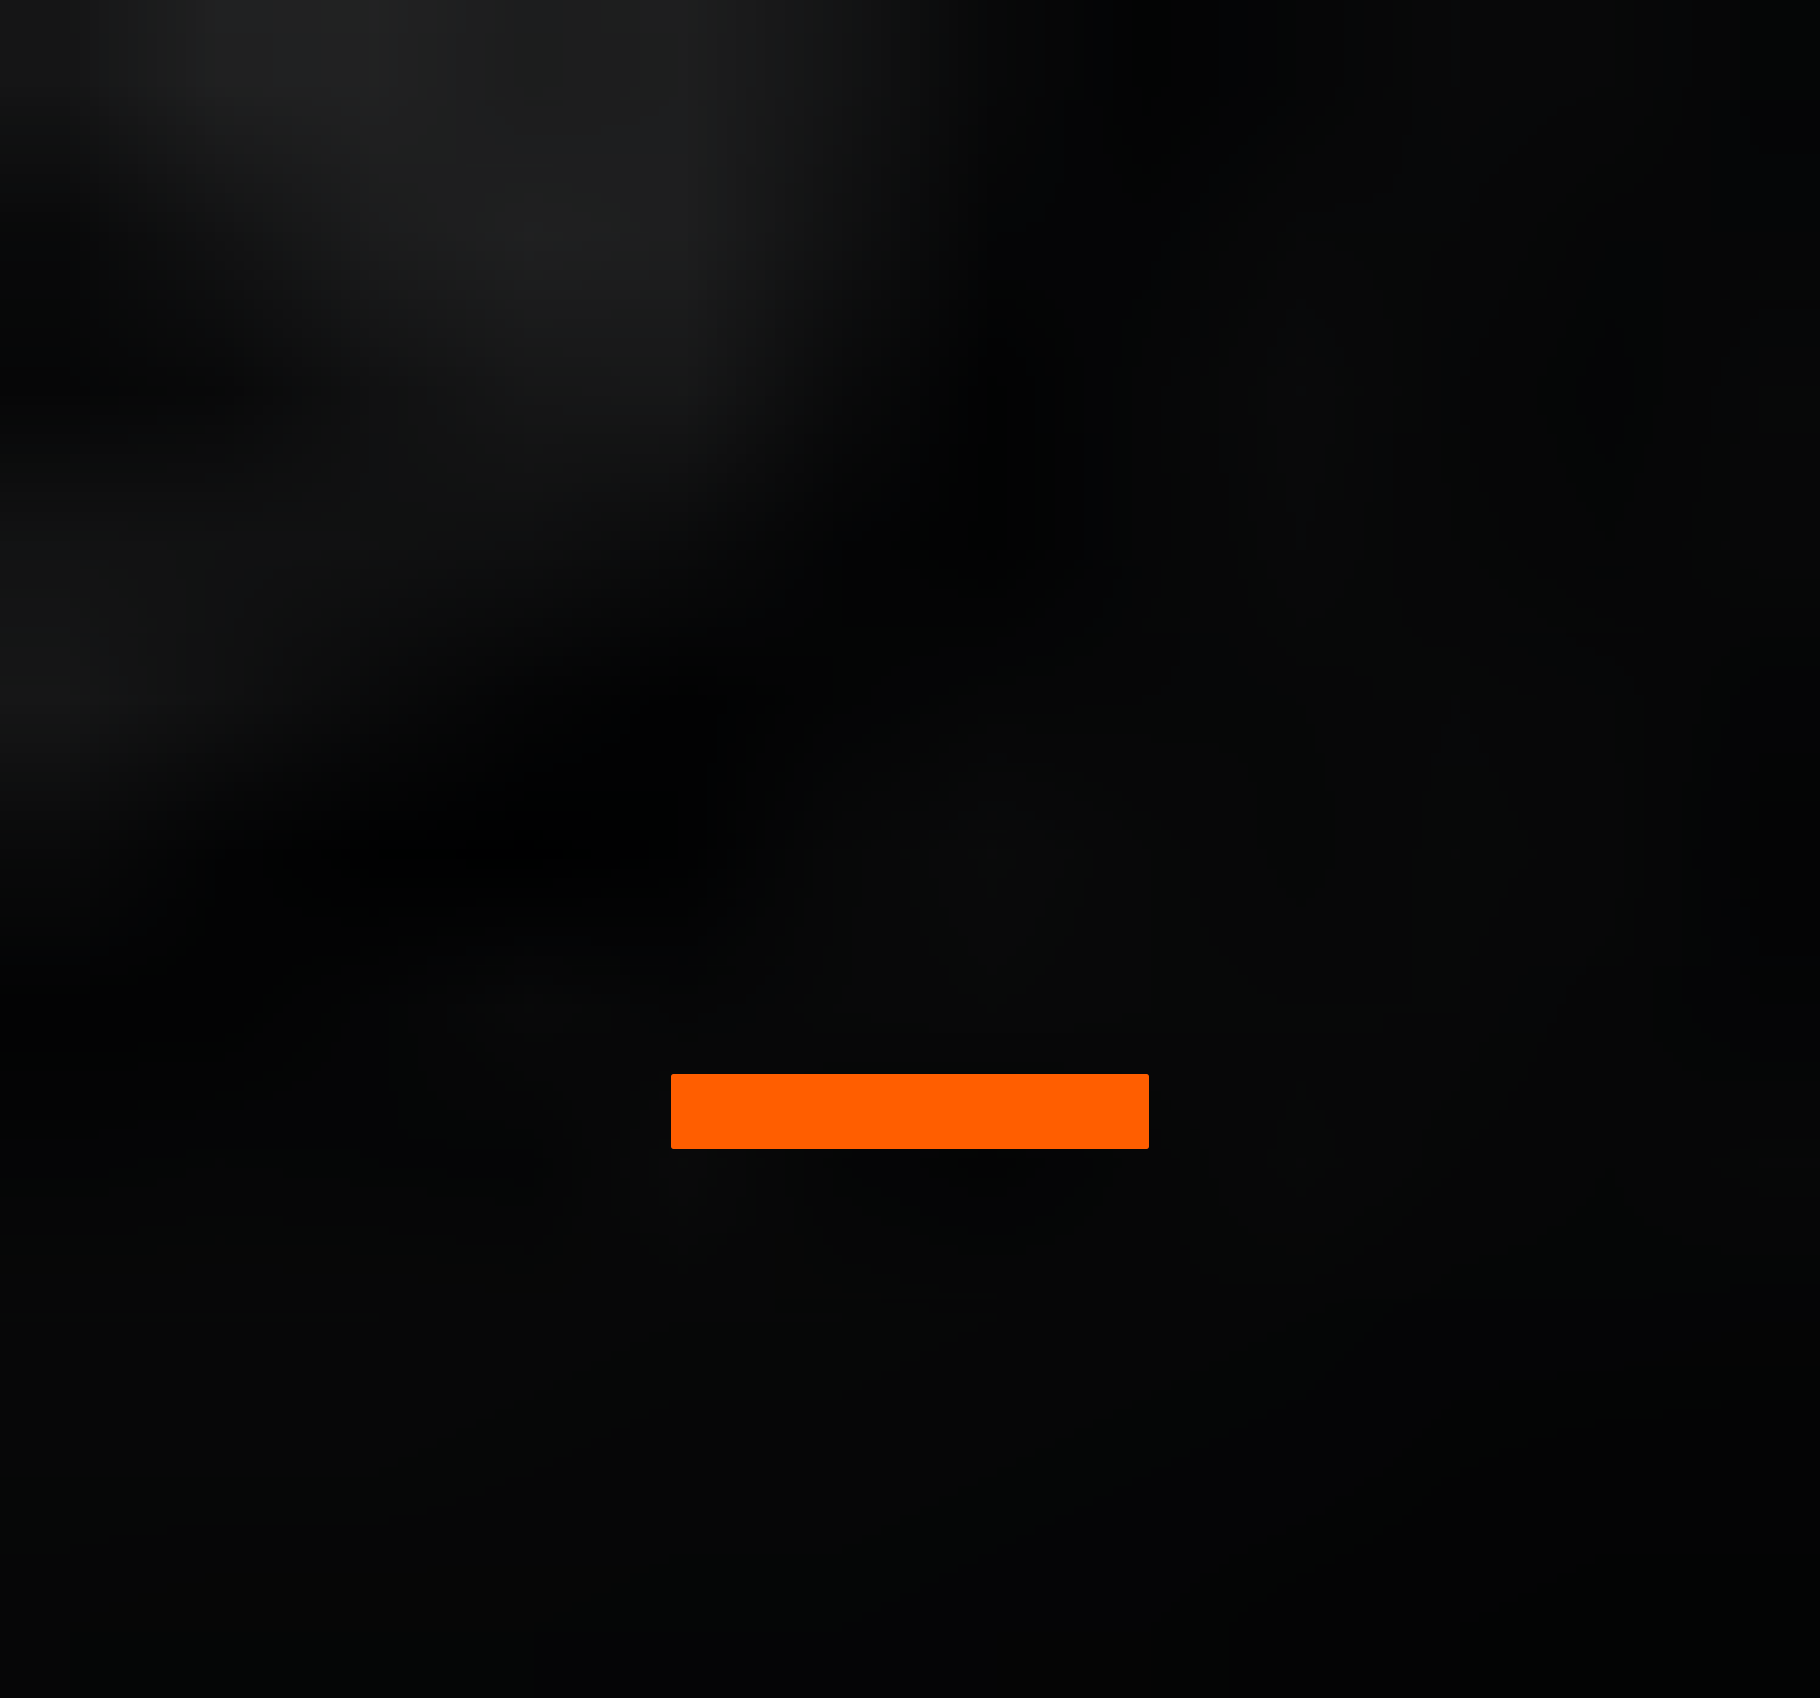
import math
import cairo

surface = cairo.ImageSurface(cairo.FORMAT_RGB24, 1820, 1698)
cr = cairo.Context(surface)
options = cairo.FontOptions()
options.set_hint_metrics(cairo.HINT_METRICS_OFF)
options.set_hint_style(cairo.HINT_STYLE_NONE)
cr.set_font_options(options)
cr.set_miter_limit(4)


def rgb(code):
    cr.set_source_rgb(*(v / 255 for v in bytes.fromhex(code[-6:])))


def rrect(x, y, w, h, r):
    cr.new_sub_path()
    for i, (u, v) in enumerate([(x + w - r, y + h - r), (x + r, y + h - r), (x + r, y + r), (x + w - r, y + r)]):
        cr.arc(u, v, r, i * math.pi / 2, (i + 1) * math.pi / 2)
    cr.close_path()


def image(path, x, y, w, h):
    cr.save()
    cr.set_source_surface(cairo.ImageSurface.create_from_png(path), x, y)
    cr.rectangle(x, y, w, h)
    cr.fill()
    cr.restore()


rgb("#ffffff")
cr.paint()
image("img/1.png", 0, 0, 1820, 1698)
rgb("#ff5e00")
rrect(671, 1074, 478, 75, 2.5)
cr.fill()
surface.write_to_png("page.png")
